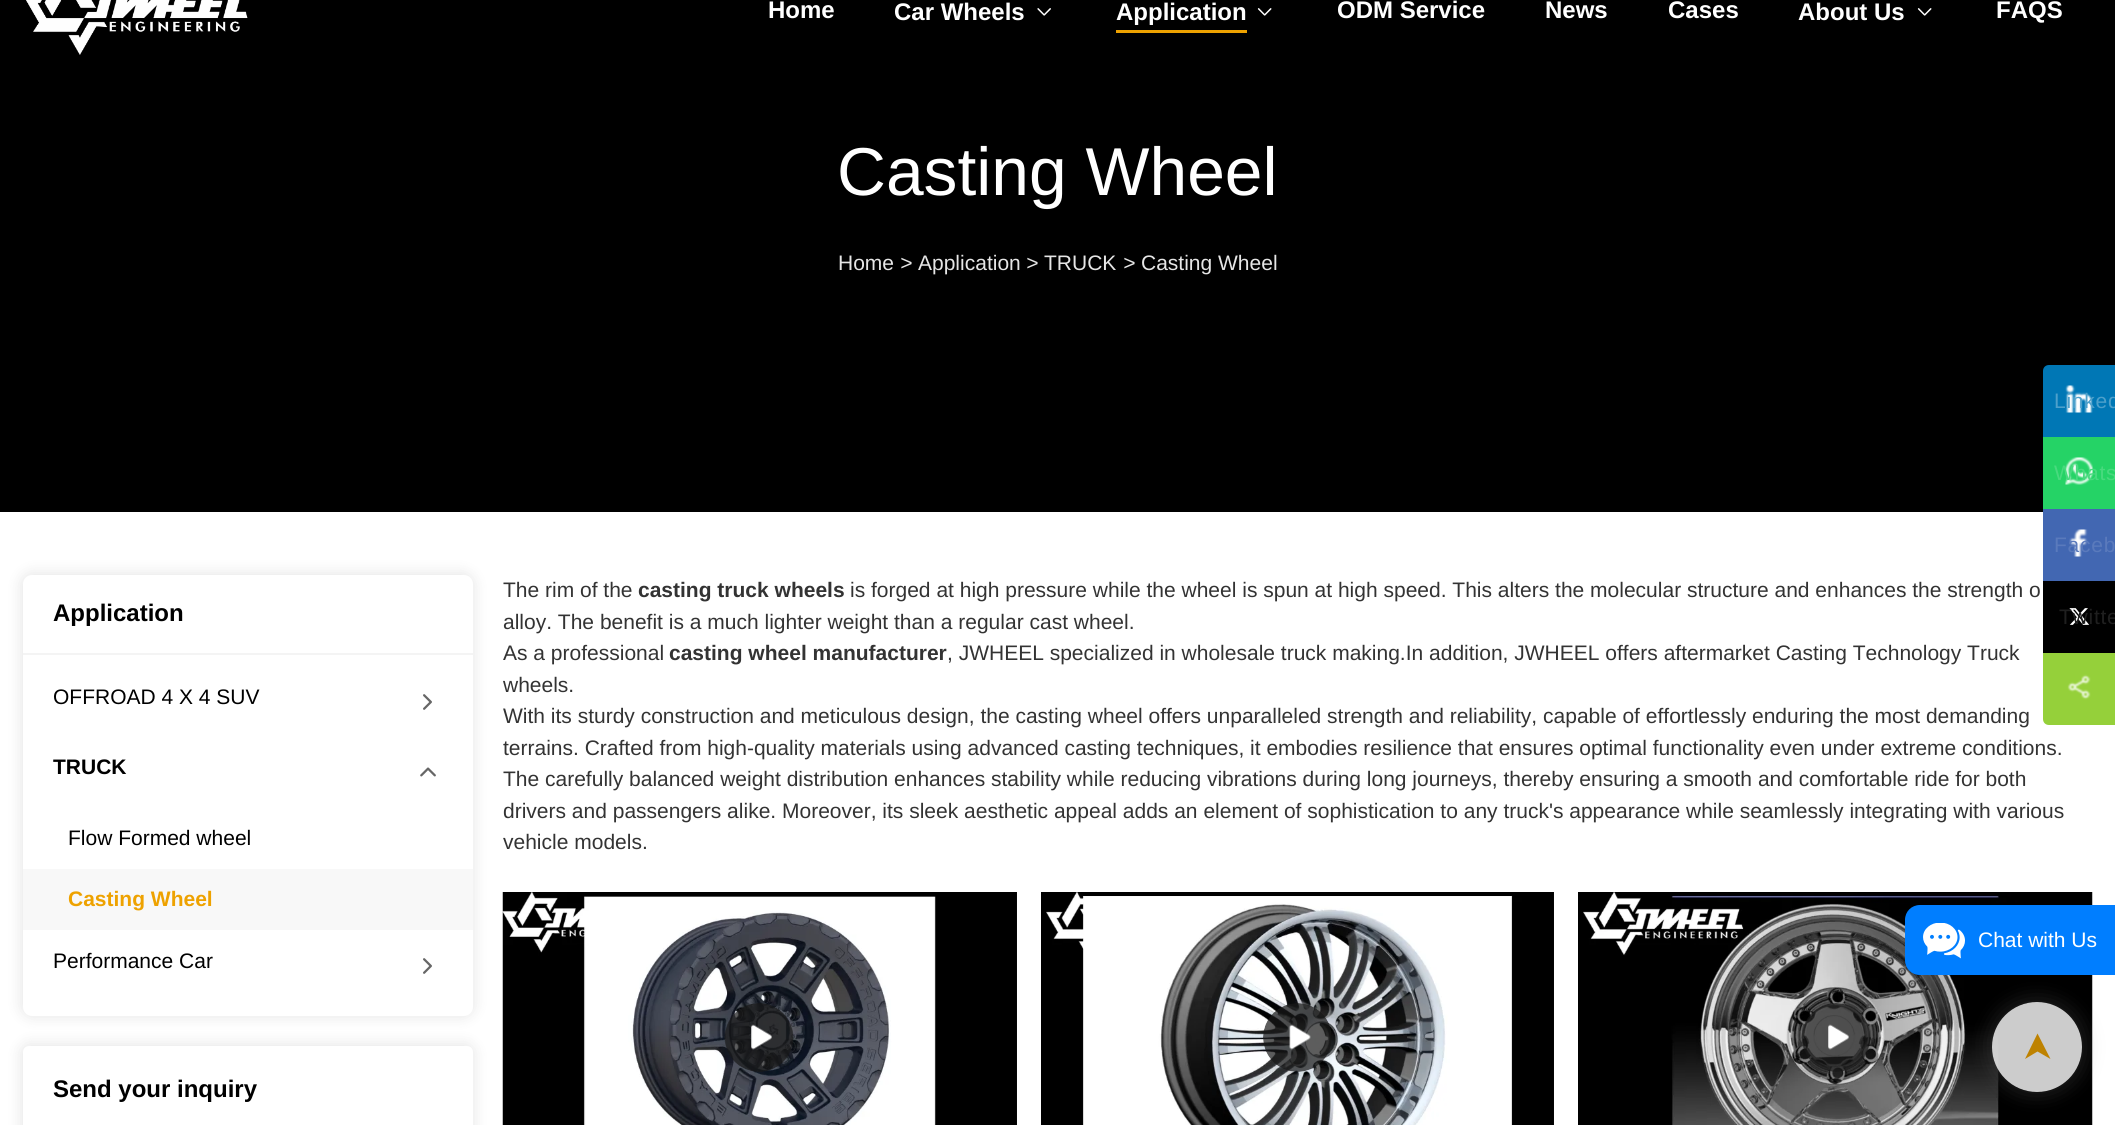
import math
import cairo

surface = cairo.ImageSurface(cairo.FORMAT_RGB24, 2115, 1125)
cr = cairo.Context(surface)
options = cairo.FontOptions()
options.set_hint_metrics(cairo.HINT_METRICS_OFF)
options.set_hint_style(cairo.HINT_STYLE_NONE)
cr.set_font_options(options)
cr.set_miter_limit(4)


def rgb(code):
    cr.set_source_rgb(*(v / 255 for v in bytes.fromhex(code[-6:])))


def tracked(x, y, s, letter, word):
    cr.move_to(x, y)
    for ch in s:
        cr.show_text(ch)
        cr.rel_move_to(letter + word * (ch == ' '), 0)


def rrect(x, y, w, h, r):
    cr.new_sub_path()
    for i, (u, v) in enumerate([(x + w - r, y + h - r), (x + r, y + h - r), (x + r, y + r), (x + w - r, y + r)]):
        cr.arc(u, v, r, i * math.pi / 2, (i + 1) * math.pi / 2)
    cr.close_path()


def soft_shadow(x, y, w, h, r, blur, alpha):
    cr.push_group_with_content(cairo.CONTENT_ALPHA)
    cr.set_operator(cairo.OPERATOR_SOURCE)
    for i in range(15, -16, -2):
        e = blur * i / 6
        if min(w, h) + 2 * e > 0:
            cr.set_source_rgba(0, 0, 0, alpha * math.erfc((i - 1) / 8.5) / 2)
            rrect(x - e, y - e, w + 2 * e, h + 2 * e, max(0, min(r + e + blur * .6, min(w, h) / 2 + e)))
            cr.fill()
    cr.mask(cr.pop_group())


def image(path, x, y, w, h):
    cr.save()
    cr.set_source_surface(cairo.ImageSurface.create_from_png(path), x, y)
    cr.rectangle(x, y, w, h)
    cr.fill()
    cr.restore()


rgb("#ffffff")
cr.paint()
rgb("#000000")
cr.rectangle(0, 0, 2115, 512)
cr.fill()
image("img/1.png", 26, 0, 222, 55)
image("img/2.png", 1037, 8, 14, 8)
rgb("#eea200")
cr.rectangle(1116, 30, 131, 3)
cr.fill()
image("img/3.png", 1257, 8, 15, 8)
image("img/3.png", 1917, 8, 15, 8)
rgb("#000000")
soft_shadow(21, 573, 453, 444, 11, 7, 0.1)
rgb("#ffffff")
rrect(23, 575, 450, 441, 9)
cr.fill()
rgb("#f4f4f4")
cr.rectangle(23, 653, 450, 2)
cr.fill()
image("img/4.png", 423, 694, 9, 16)
image("img/5.png", 420, 767, 16, 10)
rgb("#f8f8f8")
cr.rectangle(23, 869, 450, 61)
cr.fill()
image("img/4.png", 423, 958, 9, 16)
rgb("#000000")
soft_shadow(21, 1044, 453, 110, 8, 7, 0.1)
rgb("#ffffff")
rrect(23, 1046, 450, 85, 6)
cr.fill()
image("img/6.png", 502, 892, 515, 233)
image("img/7.png", 724, 1003, 70, 69)
image("img/8.png", 1041, 892, 513, 233)
image("img/9.png", 1263, 1003, 68, 69)
image("img/10.png", 1578, 892, 515, 233)
image("img/11.png", 1801, 1003, 70, 69)
rgb("#0077b5")
cr.new_path()
cr.move_to(2049, 365)
cr.line_to(2115, 365)
cr.line_to(2115, 437)
cr.line_to(2043, 437)
cr.line_to(2043, 371)
cr.curve_to(2043, 367.5, 2045.5, 365, 2049, 365)
cr.close_path()
cr.fill()
image("img/12.png", 2065, 385, 28, 28)
rgb("#25d366")
cr.rectangle(2043, 437, 72, 72)
cr.fill()
image("img/13.png", 2065, 457, 28, 28)
rgb("#4267b2")
cr.rectangle(2043, 509, 72, 72)
cr.fill()
image("img/14.png", 2069, 529, 19, 28)
rgb("#000000")
cr.rectangle(2043, 581, 72, 72)
cr.fill()
image("img/15.png", 2069, 608, 21, 17)
rgb("#95d03a")
cr.new_path()
cr.move_to(2043, 653)
cr.line_to(2115, 653)
cr.line_to(2115, 725)
cr.line_to(2049, 725)
cr.curve_to(2045.5, 725, 2043, 722.5, 2043, 719)
cr.close_path()
cr.fill()
image("img/16.png", 2067, 674, 24, 26)
cr.save()
cr.set_fill_rule(cairo.FILL_RULE_EVEN_ODD)
cr.new_path()
cr.move_to(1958, 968)
cr.line_to(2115, 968)
cr.line_to(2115, 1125)
cr.line_to(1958, 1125)
cr.close_path()
cr.move_to(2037, 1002)
cr.curve_to(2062, 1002, 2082, 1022, 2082, 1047)
cr.curve_to(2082, 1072, 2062, 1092, 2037, 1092)
cr.curve_to(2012, 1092, 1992, 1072, 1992, 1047)
cr.curve_to(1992, 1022, 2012, 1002, 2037, 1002)
cr.close_path()
cr.clip()
rgb("#7a7a7a")
soft_shadow(1992, 1002, 90, 90, 45, 11, 0.32)
cr.restore()
rgb("#007eff")
cr.new_path()
cr.move_to(1920, 905)
cr.line_to(2115, 905)
cr.line_to(2115, 975)
cr.line_to(1920, 975)
cr.curve_to(1911.5, 975, 1905, 968.5, 1905, 960)
cr.line_to(1905, 920)
cr.curve_to(1905, 911.5, 1911.5, 905, 1920, 905)
cr.close_path()
cr.fill()
image("img/17.png", 1923, 923, 42, 36)
cr.set_source_rgba(1, 1, 1, 0.8)
cr.arc(2037, 1047, 45, 0, 2 * math.pi)
cr.fill()
rgb("#be8200")
cr.new_path()
cr.move_to(2050.5, 1059)
cr.line_to(2037.5, 1051.5)
cr.line_to(2025, 1059)
cr.line_to(2037.5, 1033.5)
cr.close_path()
cr.fill()
cr.select_font_face("Liberation Sans", cairo.FONT_SLANT_NORMAL, cairo.FONT_WEIGHT_BOLD)
cr.set_font_size(24)
rgb("#ffffff")
for x, y, s in [
    (768, 18, "Home"),
    (894, 20, "Car Wheels"),
    (1116, 20, "Application"),
    (1337, 18, "ODM Service"),
    (1545, 18, "News"),
    (1668, 18, "Cases"),
    (1798, 20, "About Us"),
    (1996, 18, "FAQS"),
]:
    cr.move_to(x, y)
    cr.show_text(s)
cr.select_font_face("Liberation Sans")
cr.set_font_size(67.75)
cr.move_to(837, 195)
cr.show_text("Casting Wheel")
cr.set_font_size(21)
rgb("#e6e6e6")
cr.move_to(838, 270)
cr.show_text("Home")
cr.select_font_face("Liberation Sans", cairo.FONT_SLANT_ITALIC)
cr.move_to(900, 270)
cr.show_text(">")
cr.select_font_face("Liberation Sans")
cr.move_to(918, 270)
cr.show_text("Application")
cr.select_font_face("Liberation Sans", cairo.FONT_SLANT_ITALIC)
cr.move_to(1026, 270)
cr.show_text(">")
cr.select_font_face("Liberation Sans")
cr.move_to(1044, 270)
cr.show_text("TRUCK")
cr.select_font_face("Liberation Sans", cairo.FONT_SLANT_ITALIC)
cr.move_to(1123, 270)
cr.show_text(">")
cr.select_font_face("Liberation Sans")
cr.move_to(1141, 270)
cr.show_text("Casting Wheel")
cr.select_font_face("Liberation Sans", cairo.FONT_SLANT_NORMAL, cairo.FONT_WEIGHT_BOLD)
cr.set_font_size(24)
rgb("#000000")
cr.move_to(53, 621)
cr.show_text("Application")
cr.select_font_face("Liberation Sans")
cr.set_font_size(21)
cr.move_to(53, 704)
cr.show_text("OFFROAD 4 X 4 SUV")
cr.save()
cr.rectangle(53, 737, 73, 61)
cr.clip()
cr.select_font_face("Liberation Sans", cairo.FONT_SLANT_NORMAL, cairo.FONT_WEIGHT_BOLD)
cr.move_to(53, 774)
cr.show_text("TRUCK")
cr.restore()
cr.move_to(68, 845)
cr.show_text("Flow Formed wheel")
cr.select_font_face("Liberation Sans", cairo.FONT_SLANT_NORMAL, cairo.FONT_WEIGHT_BOLD)
rgb("#eea200")
cr.move_to(68, 906)
cr.show_text("Casting Wheel")
cr.select_font_face("Liberation Sans")
rgb("#000000")
cr.move_to(53, 968)
cr.show_text("Performance Car")
cr.select_font_face("Liberation Sans", cairo.FONT_SLANT_NORMAL, cairo.FONT_WEIGHT_BOLD)
cr.set_font_size(24)
cr.move_to(53, 1097)
cr.show_text("Send your inquiry")
cr.select_font_face("Liberation Sans")
cr.set_font_size(21)
rgb("#333333")
cr.move_to(503, 597)
cr.show_text("The rim of the")
cr.select_font_face("Liberation Sans", cairo.FONT_SLANT_NORMAL, cairo.FONT_WEIGHT_BOLD)
cr.move_to(638, 597)
cr.show_text("casting truck wheels")
cr.select_font_face("Liberation Sans")
for x, y, s in [
    (850, 597, "is forged at high pressure while the wheel is spun at high speed. This alters the molecular structure and enhances the strength o"),
    (503, 629, "alloy. The benefit is a much lighter weight than a regular cast wheel."),
    (503, 660, "As a professional"),
]:
    cr.move_to(x, y)
    cr.show_text(s)
cr.select_font_face("Liberation Sans", cairo.FONT_SLANT_NORMAL, cairo.FONT_WEIGHT_BOLD)
cr.move_to(669, 660)
cr.show_text("casting wheel manufacturer")
cr.select_font_face("Liberation Sans")
for x, y, s in [
    (947, 660, ", JWHEEL specialized in wholesale truck making.In addition, JWHEEL offers aftermarket Casting Technology Truck"),
    (503, 692, "wheels."),
    (503, 723, "With its sturdy construction and meticulous design, the casting wheel offers unparalleled strength and reliability, capable of effortlessly enduring the most demanding"),
    (503, 755, "terrains. Crafted from high-quality materials using advanced casting techniques, it embodies resilience that ensures optimal functionality even under extreme conditions."),
    (503, 786, "The carefully balanced weight distribution enhances stability while reducing vibrations during long journeys, thereby ensuring a smooth and comfortable ride for both"),
    (503, 818, "drivers and passengers alike. Moreover, its sleek aesthetic appeal adds an element of sophistication to any truck's appearance while seamlessly integrating with various"),
    (503, 849, "vehicle models."),
]:
    cr.move_to(x, y)
    cr.show_text(s)
rgb("#4da0cb")
tracked(2054, 408, "Linked", 0.75, 0)
rgb("#48da7e")
tracked(2054, 480, "Whats", 0.75, 0)
rgb("#5a7abc")
tracked(2054, 552, "Faceb", 0.75, 0)
rgb("#1f1f1f")
tracked(2059, 624, "Twitte", 0.75, 0)
rgb("#ffffff")
cr.move_to(1978, 947)
cr.show_text("Chat with Us")
surface.write_to_png("page.png")
